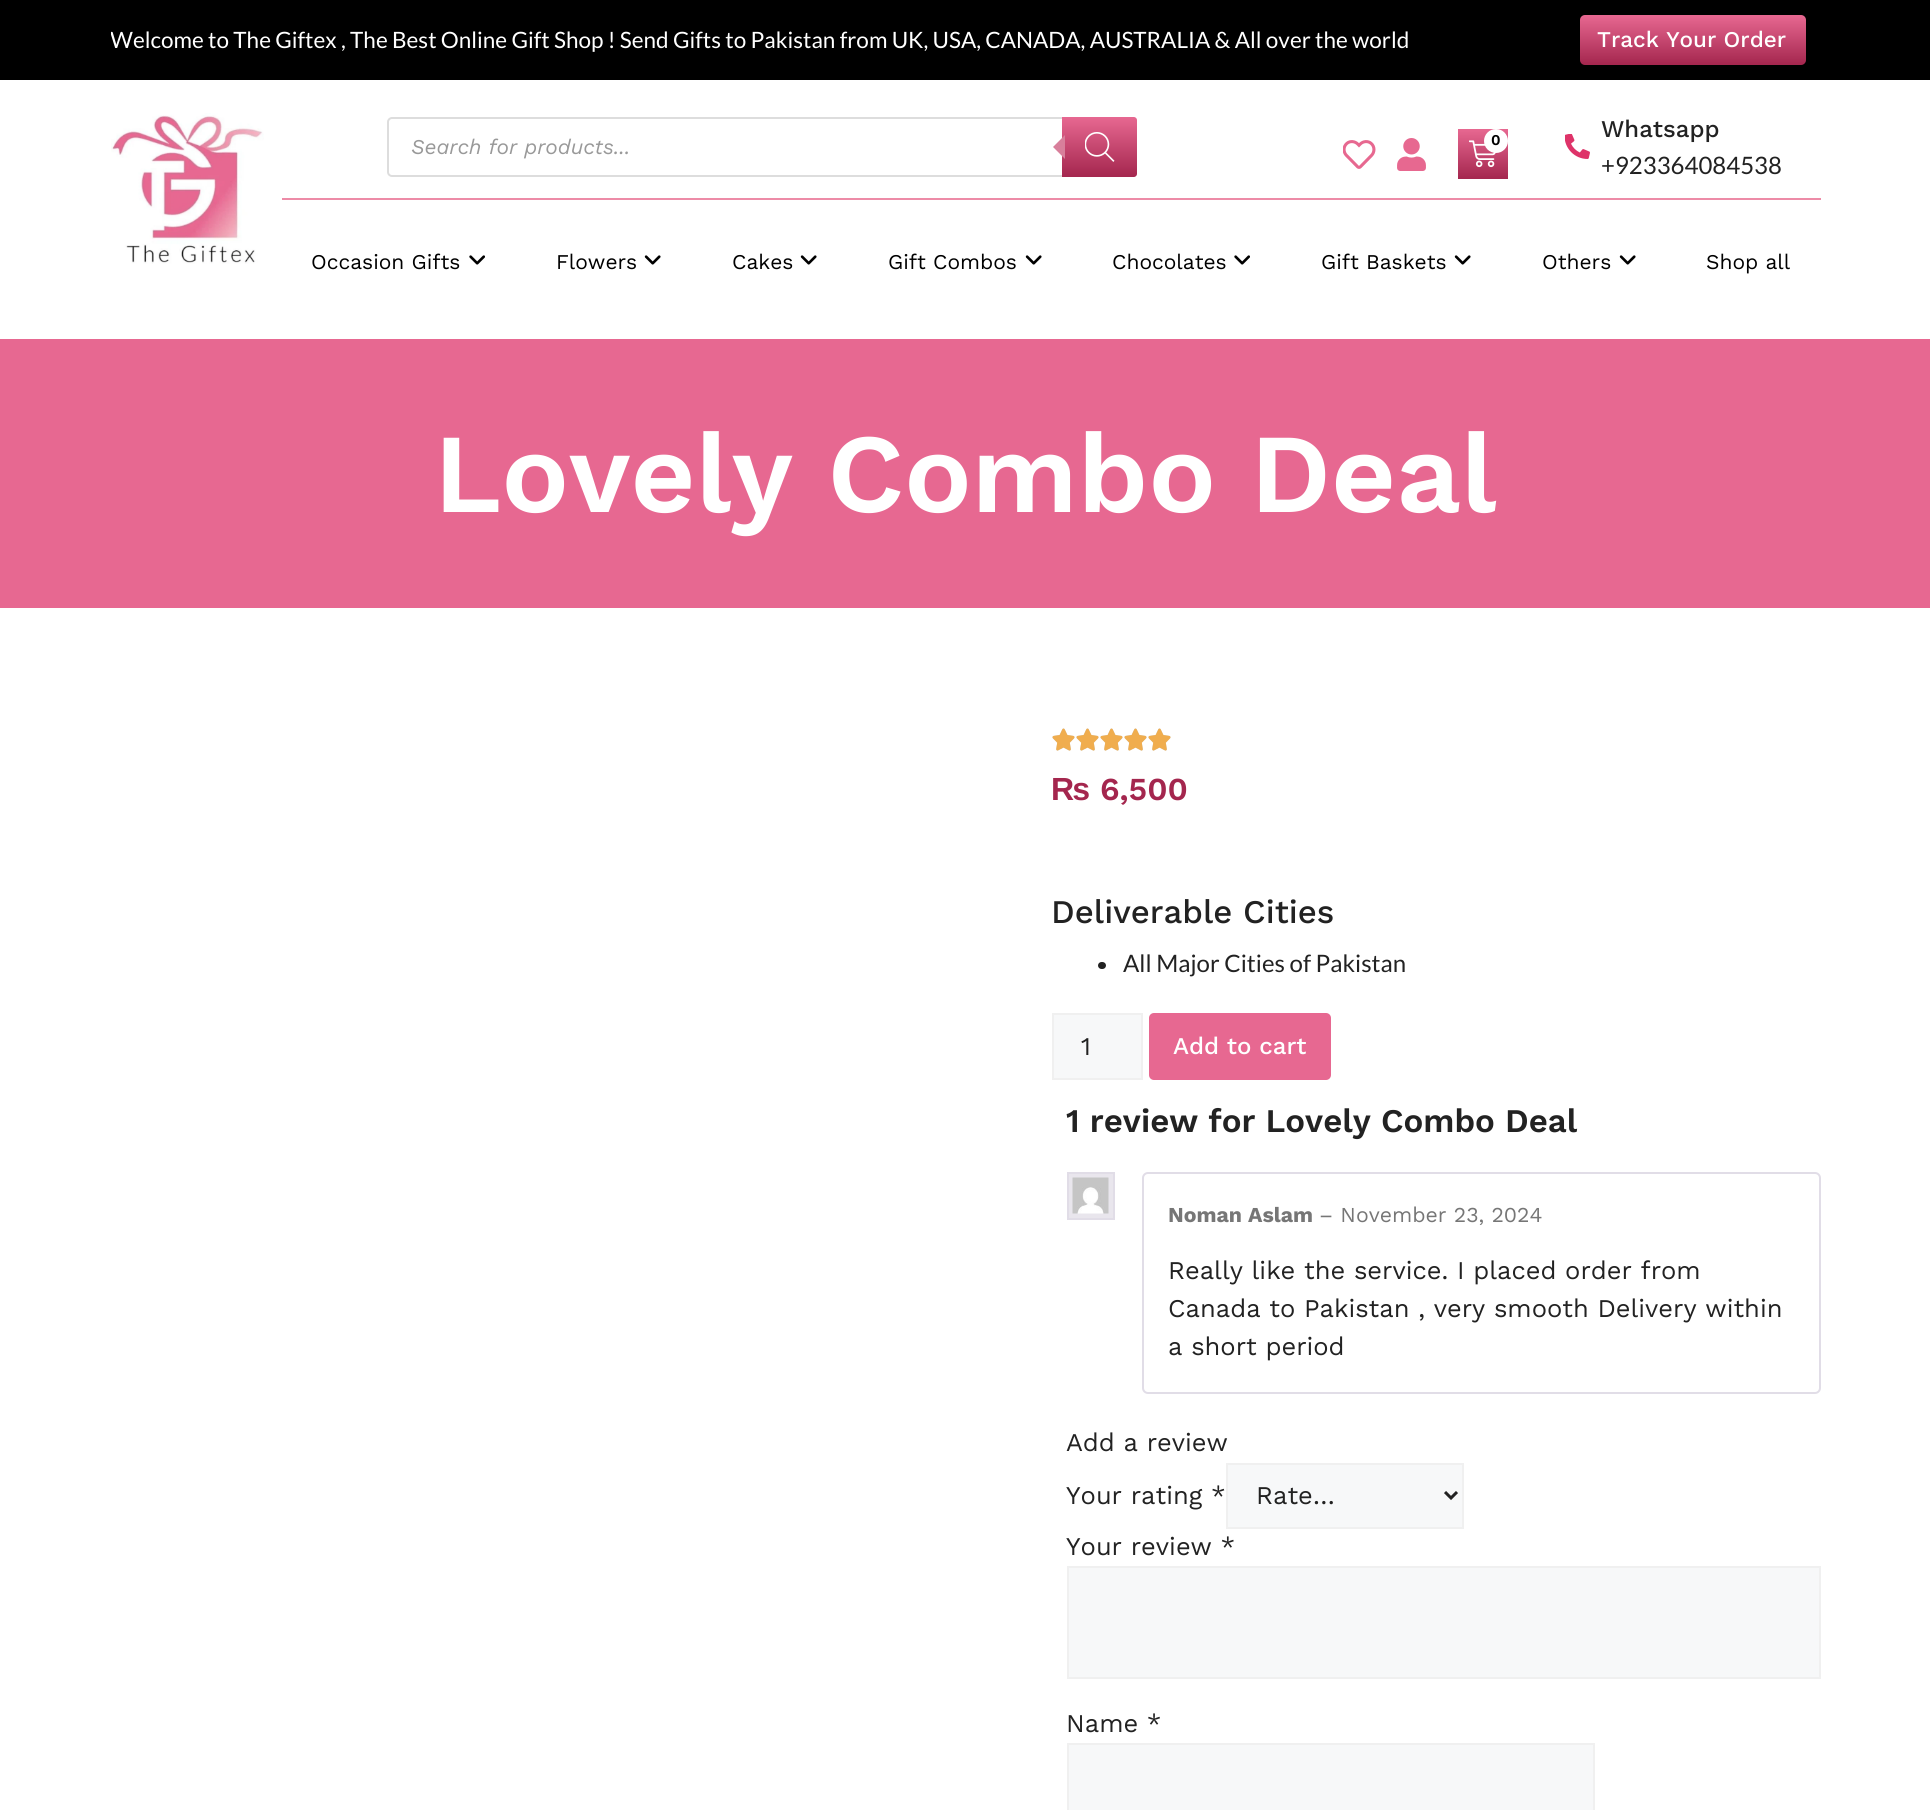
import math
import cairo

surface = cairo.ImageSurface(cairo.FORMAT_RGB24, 1930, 1810)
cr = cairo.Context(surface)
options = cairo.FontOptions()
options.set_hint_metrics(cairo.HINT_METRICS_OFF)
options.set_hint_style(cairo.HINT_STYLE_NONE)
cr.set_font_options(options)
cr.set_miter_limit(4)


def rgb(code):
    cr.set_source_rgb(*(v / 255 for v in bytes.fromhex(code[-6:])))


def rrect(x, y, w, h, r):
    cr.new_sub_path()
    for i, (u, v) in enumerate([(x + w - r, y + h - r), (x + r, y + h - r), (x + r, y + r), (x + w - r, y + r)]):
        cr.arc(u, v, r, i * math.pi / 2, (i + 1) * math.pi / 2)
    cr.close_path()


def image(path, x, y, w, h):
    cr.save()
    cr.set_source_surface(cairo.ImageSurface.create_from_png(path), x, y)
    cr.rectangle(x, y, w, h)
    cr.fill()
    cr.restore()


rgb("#ffffff")
cr.paint()
rgb("#000000")
cr.rectangle(0, 0, 1930, 80)
cr.fill()
gradient = cairo.LinearGradient(1693, 15, 1693, 65)
gradient.add_color_stop_rgba(0, 0.906, 0.408, 0.569, 1)
gradient.add_color_stop_rgba(1, 0.643, 0.149, 0.306, 1)
cr.set_source(gradient)
rrect(1580, 15, 226, 50, 5)
cr.fill()
image("img/1.png", 111, 113, 153, 151)
rgb("#ed8ba7")
cr.rectangle(282, 198, 1539, 2)
cr.fill()
rrect(388, 118, 748, 58, 4)
rgb("#dddddd")
cr.stroke()
gradient = cairo.LinearGradient(1100, 117, 1100, 177)
gradient.add_color_stop_rgba(0, 0.906, 0.408, 0.569, 1)
gradient.add_color_stop_rgba(1, 0.643, 0.149, 0.306, 1)
cr.set_source(gradient)
cr.new_path()
cr.move_to(1062, 117)
cr.line_to(1134, 117)
cr.curve_to(1135.5, 117, 1137, 118.5, 1137, 120)
cr.line_to(1137, 174)
cr.curve_to(1137, 175.5, 1135.5, 177, 1134, 177)
cr.line_to(1062, 177)
cr.close_path()
cr.fill()
rgb("#d87f9b")
cr.new_path()
cr.move_to(1065, 135)
cr.line_to(1065, 159)
cr.line_to(1053, 147)
cr.close_path()
cr.fill()
image("img/2.png", 1085, 132, 30, 30)
image("img/3.png", 1343, 140, 33, 29)
image("img/4.png", 1397, 138, 29, 33)
gradient = cairo.LinearGradient(1483, 129, 1483, 179)
gradient.add_color_stop_rgba(0, 0.906, 0.408, 0.569, 1)
gradient.add_color_stop_rgba(1, 0.643, 0.149, 0.306, 1)
cr.set_source(gradient)
cr.rectangle(1458, 129, 50, 50)
cr.fill()
image("img/5.png", 1469, 140, 27, 28)
rgb("#ffffff")
cr.arc(1496, 141, 12, 0, 2 * math.pi)
cr.fill()
image("img/6.png", 1565, 134, 25, 25)
image("img/7.png", 469, 255, 16, 10)
image("img/8.png", 644, 255, 17, 10)
image("img/8.png", 800, 255, 17, 10)
image("img/8.png", 1025, 255, 17, 10)
image("img/7.png", 1234, 255, 16, 10)
image("img/8.png", 1454, 255, 17, 10)
image("img/8.png", 1619, 255, 17, 10)
rgb("#e76891")
cr.rectangle(0, 339, 1930, 269)
cr.fill()
image("img/9.png", 1052, 728, 23, 23)
image("img/10.png", 1052, 728, 23, 23)
image("img/9.png", 1076, 728, 23, 23)
image("img/10.png", 1076, 728, 23, 23)
image("img/9.png", 1100, 728, 23, 23)
image("img/10.png", 1100, 728, 23, 23)
image("img/9.png", 1124, 728, 23, 23)
image("img/10.png", 1124, 728, 23, 23)
image("img/9.png", 1148, 728, 23, 23)
image("img/10.png", 1148, 728, 23, 23)
rgb("#222222")
rrect(1098, 962, 8, 7, 3.5)
cr.fill()
rgb("#f7f8f9")
cr.rectangle(1053, 1014, 89, 65)
cr.fill_preserve()
rgb("#f0f0f0")
cr.stroke()
rgb("#e76891")
rrect(1149, 1013, 182, 67, 5)
cr.fill()
rgb("#e9e6ed")
cr.rectangle(1068, 1173, 46, 46)
cr.fill_preserve()
rgb("#e1dde7")
cr.stroke()
image("img/11.png", 1072, 1177, 37, 37)
rrect(1143, 1173, 677, 220, 5)
cr.stroke()
rgb("#f7f8f9")
cr.rectangle(1227, 1464, 236, 64)
cr.fill_preserve()
rgb("#f0f0f0")
cr.stroke()
cr.new_path()
cr.move_to(1445, 1492)
cr.line_to(1451, 1498)
cr.line_to(1457, 1492)
rgb("#222222")
cr.set_line_width(3)
cr.stroke()
rgb("#f7f8f9")
cr.rectangle(1068, 1567, 752, 111)
cr.fill_preserve()
rgb("#f0f0f0")
cr.set_line_width(2)
cr.stroke()
rgb("#f7f8f9")
cr.rectangle(1068, 1744, 526, 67)
cr.fill_preserve()
rgb("#f0f0f0")
cr.stroke()
cr.save()
cr.rectangle(111, 8, 1454, 64)
cr.clip()
cr.select_font_face("Lato")
cr.set_font_size(22.5)
rgb("#ffffff")
cr.move_to(110, 48)
cr.show_text("Welcome to The Giftex , The Best Online Gift Shop ! Send Gifts to Pakistan from UK, USA, CANADA, AUSTRALIA & All over the world")
cr.restore()
cr.select_font_face("Work Sans Medium")
cr.set_font_size(22.5)
rgb("#ffffff")
cr.move_to(1597, 47)
cr.show_text("Track Your Order")
cr.select_font_face("Work Sans", cairo.FONT_SLANT_ITALIC)
cr.set_font_size(21)
rgb("#999999")
cr.move_to(411, 154)
cr.show_text("Search for products...")
cr.select_font_face("Work Sans SemiBold")
cr.set_font_size(15)
rgb("#000000")
cr.move_to(1491, 145)
cr.show_text("0")
cr.select_font_face("Work Sans Medium")
cr.set_font_size(24)
rgb("#222222")
cr.move_to(1601, 137)
cr.show_text("Whatsapp")
cr.select_font_face("Lato")
cr.move_to(1601, 174)
cr.show_text("+923364084538")
cr.select_font_face("Work Sans")
cr.set_font_size(21)
rgb("#000000")
for x, y, s in [
    (311, 269, "Occasion Gifts"),
    (556, 269, "Flowers"),
    (732, 269, "Cakes"),
    (888, 269, "Gift Combos"),
    (1112, 269, "Chocolates"),
    (1321, 269, "Gift Baskets"),
    (1542, 269, "Others"),
    (1706, 269, "Shop all"),
]:
    cr.move_to(x, y)
    cr.show_text(s)
cr.select_font_face("Work Sans SemiBold")
cr.set_font_size(112.5)
rgb("#ffffff")
cr.move_to(434, 512)
cr.show_text("Lovely Combo Deal")
cr.select_font_face("Liberation Sans", cairo.FONT_SLANT_NORMAL, cairo.FONT_WEIGHT_BOLD)
cr.set_font_size(32)
rgb("#a4264e")
cr.move_to(1051, 800)
cr.show_text("₨")
cr.select_font_face("Work Sans SemiBold")
cr.move_to(1100, 800)
cr.show_text("6,500")
cr.select_font_face("Work Sans Medium")
cr.set_font_size(33)
rgb("#222222")
cr.move_to(1051, 923)
cr.show_text("Deliverable Cities")
cr.select_font_face("Lato")
cr.set_font_size(24)
cr.move_to(1123, 972)
cr.show_text("All Major Cities of Pakistan")
cr.select_font_face("Work Sans")
cr.set_font_size(25.5)
cr.move_to(1081, 1055)
cr.show_text("1")
cr.select_font_face("Work Sans Medium")
cr.set_font_size(24)
rgb("#ffffff")
cr.move_to(1173, 1054)
cr.show_text("Add to cart")
cr.select_font_face("Work Sans SemiBold")
cr.set_font_size(33)
rgb("#222222")
cr.move_to(1066, 1132)
cr.show_text("1 review for Lovely Combo Deal")
cr.select_font_face("Work Sans", cairo.FONT_SLANT_NORMAL, cairo.FONT_WEIGHT_BOLD)
cr.set_font_size(21.25)
rgb("#767676")
cr.move_to(1168, 1222)
cr.show_text("Noman Aslam")
cr.select_font_face("Work Sans")
cr.move_to(1319, 1222)
cr.show_text("– November 23, 2024")
cr.set_font_size(25.5)
rgb("#222222")
for x, y, s in [
    (1168, 1279, "Really like the service. I placed order from"),
    (1168, 1317, "Canada to Pakistan , very smooth Delivery within"),
    (1168, 1355, "a short period"),
    (1066, 1451, "Add a review"),
    (1066, 1504, "Your rating *"),
    (1256, 1504, "Rate…"),
    (1066, 1555, "Your review *"),
    (1066, 1732, "Name *"),
]:
    cr.move_to(x, y)
    cr.show_text(s)
surface.write_to_png("page.png")
